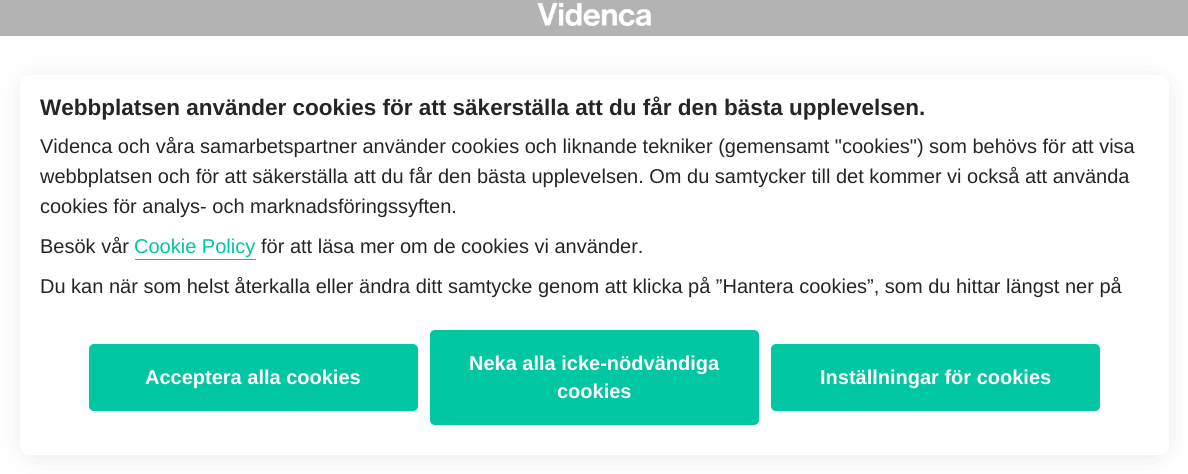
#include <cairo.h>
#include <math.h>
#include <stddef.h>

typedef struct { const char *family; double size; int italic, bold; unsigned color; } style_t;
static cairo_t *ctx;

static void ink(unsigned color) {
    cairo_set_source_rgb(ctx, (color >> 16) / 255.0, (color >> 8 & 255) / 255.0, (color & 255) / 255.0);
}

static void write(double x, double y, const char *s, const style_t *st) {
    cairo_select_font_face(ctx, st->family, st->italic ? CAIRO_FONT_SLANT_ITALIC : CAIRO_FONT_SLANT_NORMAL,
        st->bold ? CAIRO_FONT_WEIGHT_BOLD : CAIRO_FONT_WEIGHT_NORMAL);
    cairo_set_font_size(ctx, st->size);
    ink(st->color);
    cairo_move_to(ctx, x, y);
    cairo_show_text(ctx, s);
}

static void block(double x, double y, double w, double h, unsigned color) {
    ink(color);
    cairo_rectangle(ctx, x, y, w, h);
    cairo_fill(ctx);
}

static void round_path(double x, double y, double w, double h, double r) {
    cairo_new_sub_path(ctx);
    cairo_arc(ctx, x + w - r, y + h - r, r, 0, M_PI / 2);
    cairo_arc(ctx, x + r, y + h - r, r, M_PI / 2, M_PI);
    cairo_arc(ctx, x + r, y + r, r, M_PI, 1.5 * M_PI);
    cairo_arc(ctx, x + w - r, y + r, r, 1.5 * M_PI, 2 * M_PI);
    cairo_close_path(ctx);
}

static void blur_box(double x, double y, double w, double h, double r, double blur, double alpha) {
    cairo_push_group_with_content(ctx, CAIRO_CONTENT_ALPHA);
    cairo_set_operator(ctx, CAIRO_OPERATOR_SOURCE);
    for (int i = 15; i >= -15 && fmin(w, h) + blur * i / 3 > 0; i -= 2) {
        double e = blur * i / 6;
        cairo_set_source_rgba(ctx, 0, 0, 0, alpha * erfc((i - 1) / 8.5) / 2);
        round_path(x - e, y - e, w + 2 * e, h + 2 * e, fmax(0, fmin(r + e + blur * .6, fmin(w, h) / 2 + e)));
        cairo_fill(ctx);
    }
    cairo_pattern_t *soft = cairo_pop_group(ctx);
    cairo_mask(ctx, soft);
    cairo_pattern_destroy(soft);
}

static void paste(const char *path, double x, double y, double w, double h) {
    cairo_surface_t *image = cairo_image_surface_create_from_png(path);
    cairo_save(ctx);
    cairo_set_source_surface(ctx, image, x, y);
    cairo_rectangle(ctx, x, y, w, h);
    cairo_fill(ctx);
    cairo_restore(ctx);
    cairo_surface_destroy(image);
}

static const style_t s1 = {"Liberation Sans", 22.5, 0, 1, 0x252525};
static const style_t s2 = {"Liberation Sans", 20, 0, 0, 0x252525};
static const style_t s3 = {"Liberation Sans", 20, 0, 0, 0x00c6a2};
static const style_t s4 = {"Liberation Sans", 20, 0, 1, 0xffffff};

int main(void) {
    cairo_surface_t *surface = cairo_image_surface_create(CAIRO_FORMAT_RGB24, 1188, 474);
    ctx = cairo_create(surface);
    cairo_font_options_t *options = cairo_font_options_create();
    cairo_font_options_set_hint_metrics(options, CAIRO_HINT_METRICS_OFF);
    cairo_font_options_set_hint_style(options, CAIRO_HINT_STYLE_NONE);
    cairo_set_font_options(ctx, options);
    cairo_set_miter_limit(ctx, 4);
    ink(0xffffff);
    cairo_paint(ctx);
    block(0, 0, 1188, 36, 0xb3b3b3);
    paste("pic1.png", 537, 2, 115, 24);
    ink(0x000000);
    blur_box(33, 90, 1123, 355, 0, 17, 0.18);
    ink(0xffffff);
    round_path(20, 75, 1149, 380, 10);
    cairo_fill(ctx);
    write(40, 115, "Webbplatsen använder cookies för att säkerställa att du får den bästa upplevelsen.", &s1);
    write(40, 153, "Videnca och våra samarbetspartner använder cookies och liknande tekniker (gemensamt \"cookies\") som behövs för att visa", &s2);
    write(40, 183, "webbplatsen och för att säkerställa att du får den bästa upplevelsen. Om du samtycker till det kommer vi också att använda", &s2);
    write(40, 213, "cookies för analys- och marknadsföringssyften.", &s2);
    write(40, 253, "Besök vår", &s2);
    write(134, 253, "Cookie Policy", &s3);
    block(135, 259, 121, 1, 0x00c6a2);
    write(261, 253, "för att läsa mer om de cookies vi använder.", &s2);
    write(40, 293, "Du kan när som helst återkalla eller ändra ditt samtycke genom att klicka på ”Hantera cookies”, som du hittar längst ner på", &s2);
    ink(0x00c6a2);
    round_path(89, 344, 329, 67, 5);
    cairo_fill(ctx);
    write(145, 384, "Acceptera alla cookies", &s4);
    ink(0x00c6a2);
    round_path(430, 330, 329, 95, 5);
    cairo_fill(ctx);
    write(469, 370, "Neka alla icke-nödvändiga", &s4);
    write(557, 398, "cookies", &s4);
    ink(0x00c6a2);
    round_path(771, 344, 329, 67, 5);
    cairo_fill(ctx);
    write(820, 384, "Inställningar för cookies", &s4);
    cairo_surface_write_to_png(surface, "screenshot.png");
    cairo_font_options_destroy(options);
    cairo_destroy(ctx);
    cairo_surface_destroy(surface);
    return 0;
}
